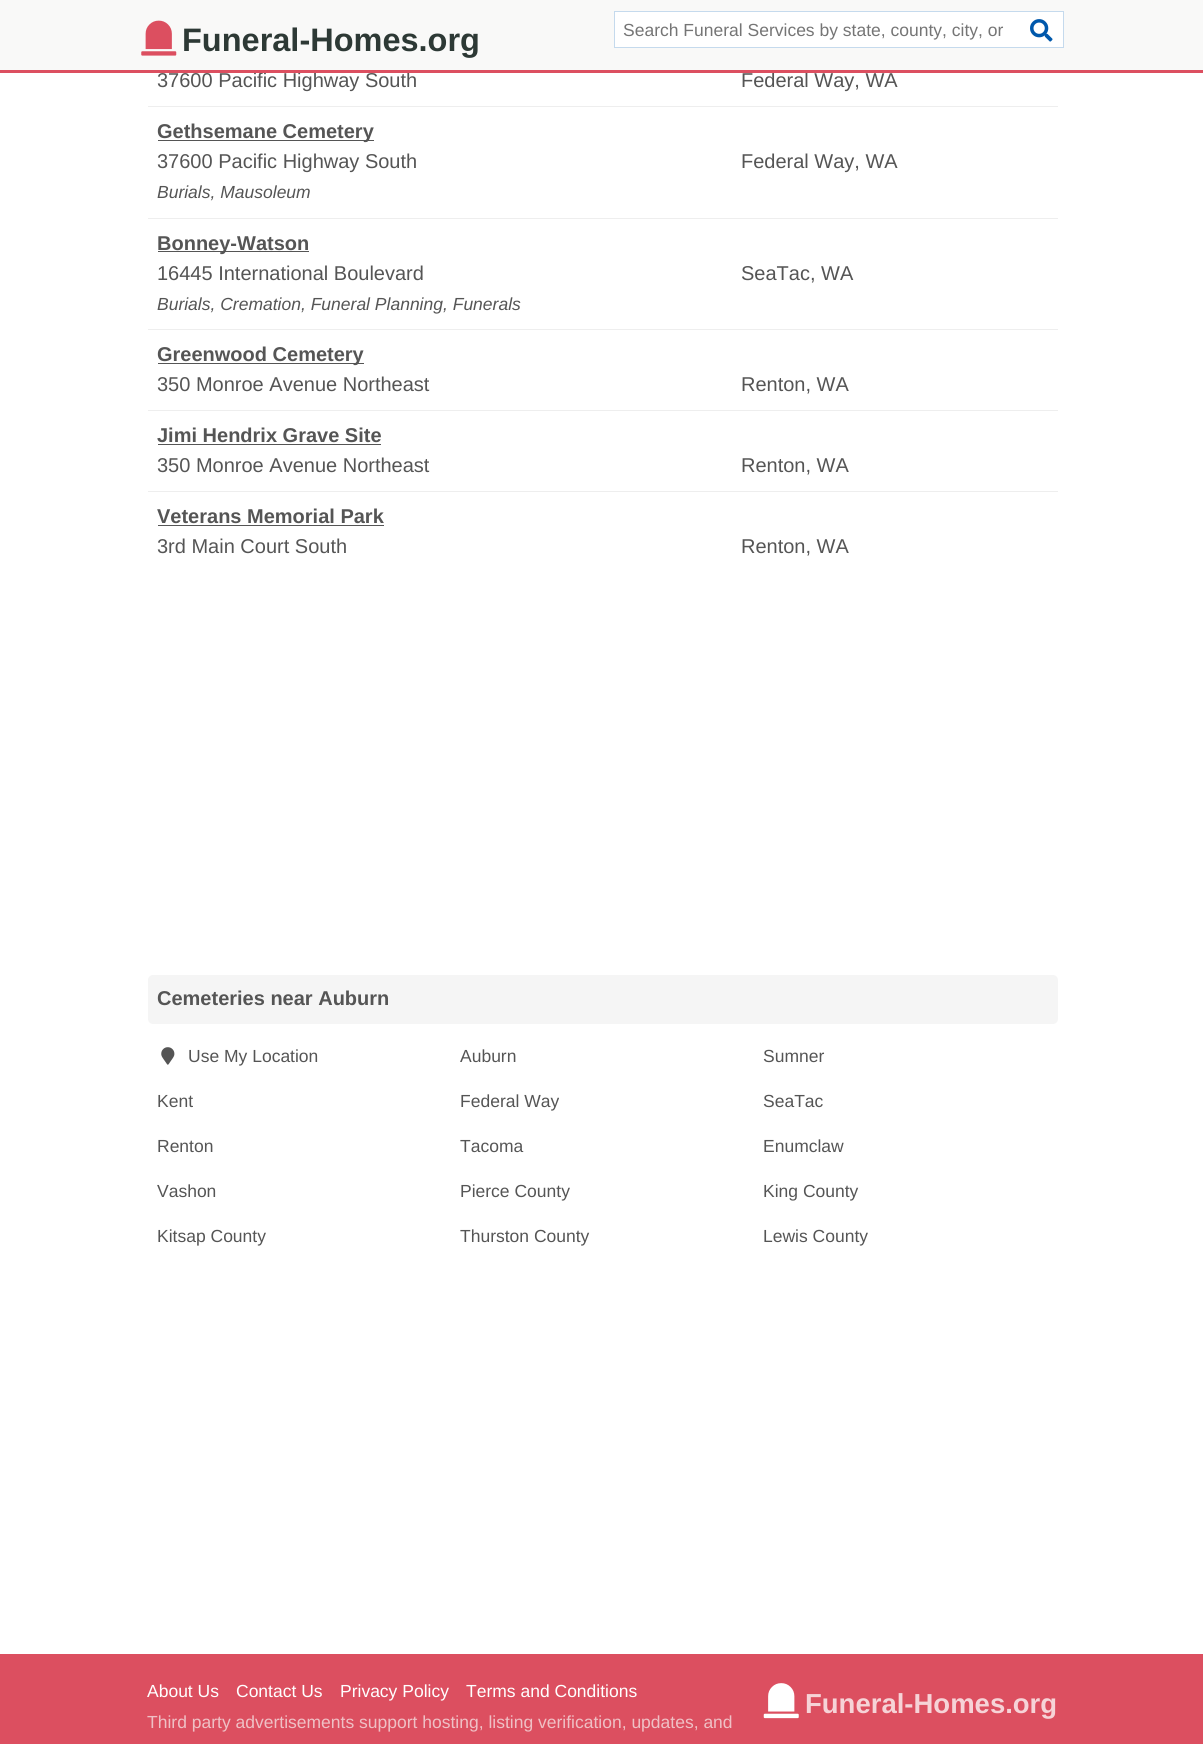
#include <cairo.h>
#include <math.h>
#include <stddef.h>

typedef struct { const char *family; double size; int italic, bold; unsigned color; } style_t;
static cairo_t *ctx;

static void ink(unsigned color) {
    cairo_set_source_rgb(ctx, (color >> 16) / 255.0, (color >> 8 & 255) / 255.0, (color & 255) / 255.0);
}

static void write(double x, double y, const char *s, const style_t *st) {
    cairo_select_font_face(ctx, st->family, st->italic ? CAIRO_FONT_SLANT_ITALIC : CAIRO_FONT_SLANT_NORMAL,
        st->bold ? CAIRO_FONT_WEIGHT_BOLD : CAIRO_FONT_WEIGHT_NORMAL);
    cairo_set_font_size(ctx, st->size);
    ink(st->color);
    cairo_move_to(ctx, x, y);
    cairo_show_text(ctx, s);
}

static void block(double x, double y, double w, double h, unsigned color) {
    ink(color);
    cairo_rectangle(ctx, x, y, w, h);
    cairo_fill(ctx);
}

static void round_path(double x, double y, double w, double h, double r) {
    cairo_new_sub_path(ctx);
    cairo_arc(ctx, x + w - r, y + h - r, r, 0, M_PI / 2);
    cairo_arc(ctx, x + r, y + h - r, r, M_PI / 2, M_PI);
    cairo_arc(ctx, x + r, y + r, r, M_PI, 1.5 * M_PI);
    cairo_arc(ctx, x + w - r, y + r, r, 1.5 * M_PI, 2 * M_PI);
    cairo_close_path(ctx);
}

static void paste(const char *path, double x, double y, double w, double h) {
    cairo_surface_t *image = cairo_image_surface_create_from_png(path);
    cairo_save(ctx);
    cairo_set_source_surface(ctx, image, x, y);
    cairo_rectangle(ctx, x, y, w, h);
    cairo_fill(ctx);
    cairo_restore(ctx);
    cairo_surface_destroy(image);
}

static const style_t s1 = {"Liberation Sans", 20, 0, 0, 0x555555};
static const style_t s2 = {"Liberation Sans", 32.5, 0, 1, 0x2d3935};
static const style_t s3 = {"Liberation Sans", 17.5, 0, 0, 0x757575};
static const style_t s4 = {"Liberation Sans", 20, 0, 1, 0x555555};
static const style_t s5 = {"Liberation Sans", 17.5, 1, 0, 0x555555};
static const style_t s6 = {"Liberation Sans", 17.5, 0, 0, 0x555555};
static const style_t s7 = {"Liberation Sans", 17.5, 0, 0, 0xffffff};
static const style_t s8 = {"Liberation Sans", 17.5, 0, 0, 0xefc0c5};
static const style_t s9 = {"Liberation Sans", 27.5, 0, 1, 0xf6d3d7};

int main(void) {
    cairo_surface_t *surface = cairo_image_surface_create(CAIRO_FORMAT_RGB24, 1203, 1744);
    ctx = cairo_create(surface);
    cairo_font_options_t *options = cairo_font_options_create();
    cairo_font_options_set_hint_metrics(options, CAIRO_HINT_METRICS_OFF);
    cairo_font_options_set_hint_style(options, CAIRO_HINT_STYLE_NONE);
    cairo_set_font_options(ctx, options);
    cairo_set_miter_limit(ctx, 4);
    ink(0xffffff);
    cairo_paint(ctx);
    block(0, 0, 1203, 70, 0xf9f9f8);
    write(157, 87, "37600 Pacific Highway South", &s1);
    write(741, 87, "Federal Way, WA", &s1);
    block(0, 70, 1203, 3, 0xdc4f60);
    paste("pic1.png", 141, 20, 36, 36);
    write(182, 51, "Funeral-Homes.org", &s2);
    ink(0xffffff);
    cairo_rectangle(ctx, 614.5, 11.5, 449, 36);
    cairo_fill_preserve(ctx);
    ink(0xc5daed);
    cairo_set_line_width(ctx, 1);
    cairo_stroke(ctx);
    write(623, 36, "Search Funeral Services by state, county, city, or", &s3);
    paste("pic2.png", 1030, 19, 23, 23);
    block(148, 106, 910, 1, 0xeeeeee);
    block(158, 140, 216, 1, 0x555555);
    write(157, 138, "Gethsemane Cemetery", &s4);
    write(157, 168, "37600 Pacific Highway South", &s1);
    write(741, 168, "Federal Way, WA", &s1);
    write(157, 198, "Burials, Mausoleum", &s5);
    block(148, 218, 910, 1, 0xeeeeee);
    block(158, 251, 151, 1, 0x555555);
    write(157, 250, "Bonney-Watson", &s4);
    write(157, 280, "16445 International Boulevard", &s1);
    write(741, 280, "SeaTac, WA", &s1);
    write(157, 310, "Burials, Cremation, Funeral Planning, Funerals", &s5);
    block(148, 329, 910, 1, 0xeeeeee);
    block(158, 363, 206, 1, 0x555555);
    write(157, 361, "Greenwood Cemetery", &s4);
    write(157, 391, "350 Monroe Avenue Northeast", &s1);
    write(741, 391, "Renton, WA", &s1);
    block(148, 410, 910, 1, 0xeeeeee);
    write(157, 442, "Jimi Hendrix Grave Site", &s4);
    block(158, 444, 223, 1, 0x555555);
    write(157, 472, "350 Monroe Avenue Northeast", &s1);
    write(741, 472, "Renton, WA", &s1);
    block(148, 491, 910, 1, 0xeeeeee);
    write(157, 523, "Veterans Memorial Park", &s4);
    block(158, 525, 226, 1, 0x555555);
    write(157, 553, "3rd Main Court South", &s1);
    write(741, 553, "Renton, WA", &s1);
    ink(0xf5f5f5);
    round_path(148, 975, 910, 49, 5);
    cairo_fill(ctx);
    write(157, 1005, "Cemeteries near Auburn", &s4);
    paste("pic3.png", 161, 1047, 14, 18);
    write(188, 1062, "Use My Location", &s6);
    write(460, 1062, "Auburn", &s6);
    write(763, 1062, "Sumner", &s6);
    write(157, 1107, "Kent", &s6);
    write(460, 1107, "Federal Way", &s6);
    write(763, 1107, "SeaTac", &s6);
    write(157, 1152, "Renton", &s6);
    write(460, 1152, "Tacoma", &s6);
    write(763, 1152, "Enumclaw", &s6);
    write(157, 1197, "Vashon", &s6);
    write(460, 1197, "Pierce County", &s6);
    write(763, 1197, "King County", &s6);
    write(157, 1242, "Kitsap County", &s6);
    write(460, 1242, "Thurston County", &s6);
    write(763, 1242, "Lewis County", &s6);
    block(0, 1654, 1203, 90, 0xdc4f60);
    write(147, 1697, "About Us", &s7);
    write(236, 1697, "Contact Us", &s7);
    write(340, 1697, "Privacy Policy", &s7);
    write(466, 1697, "Terms and Conditions", &s7);
    write(147, 1728, "Third party advertisements support hosting, listing verification, updates, and", &s8);
    paste("pic4.png", 763, 1683, 36, 36);
    write(805, 1713, "Funeral-Homes.org", &s9);
    cairo_surface_write_to_png(surface, "screenshot.png");
    cairo_font_options_destroy(options);
    cairo_destroy(ctx);
    cairo_surface_destroy(surface);
    return 0;
}
